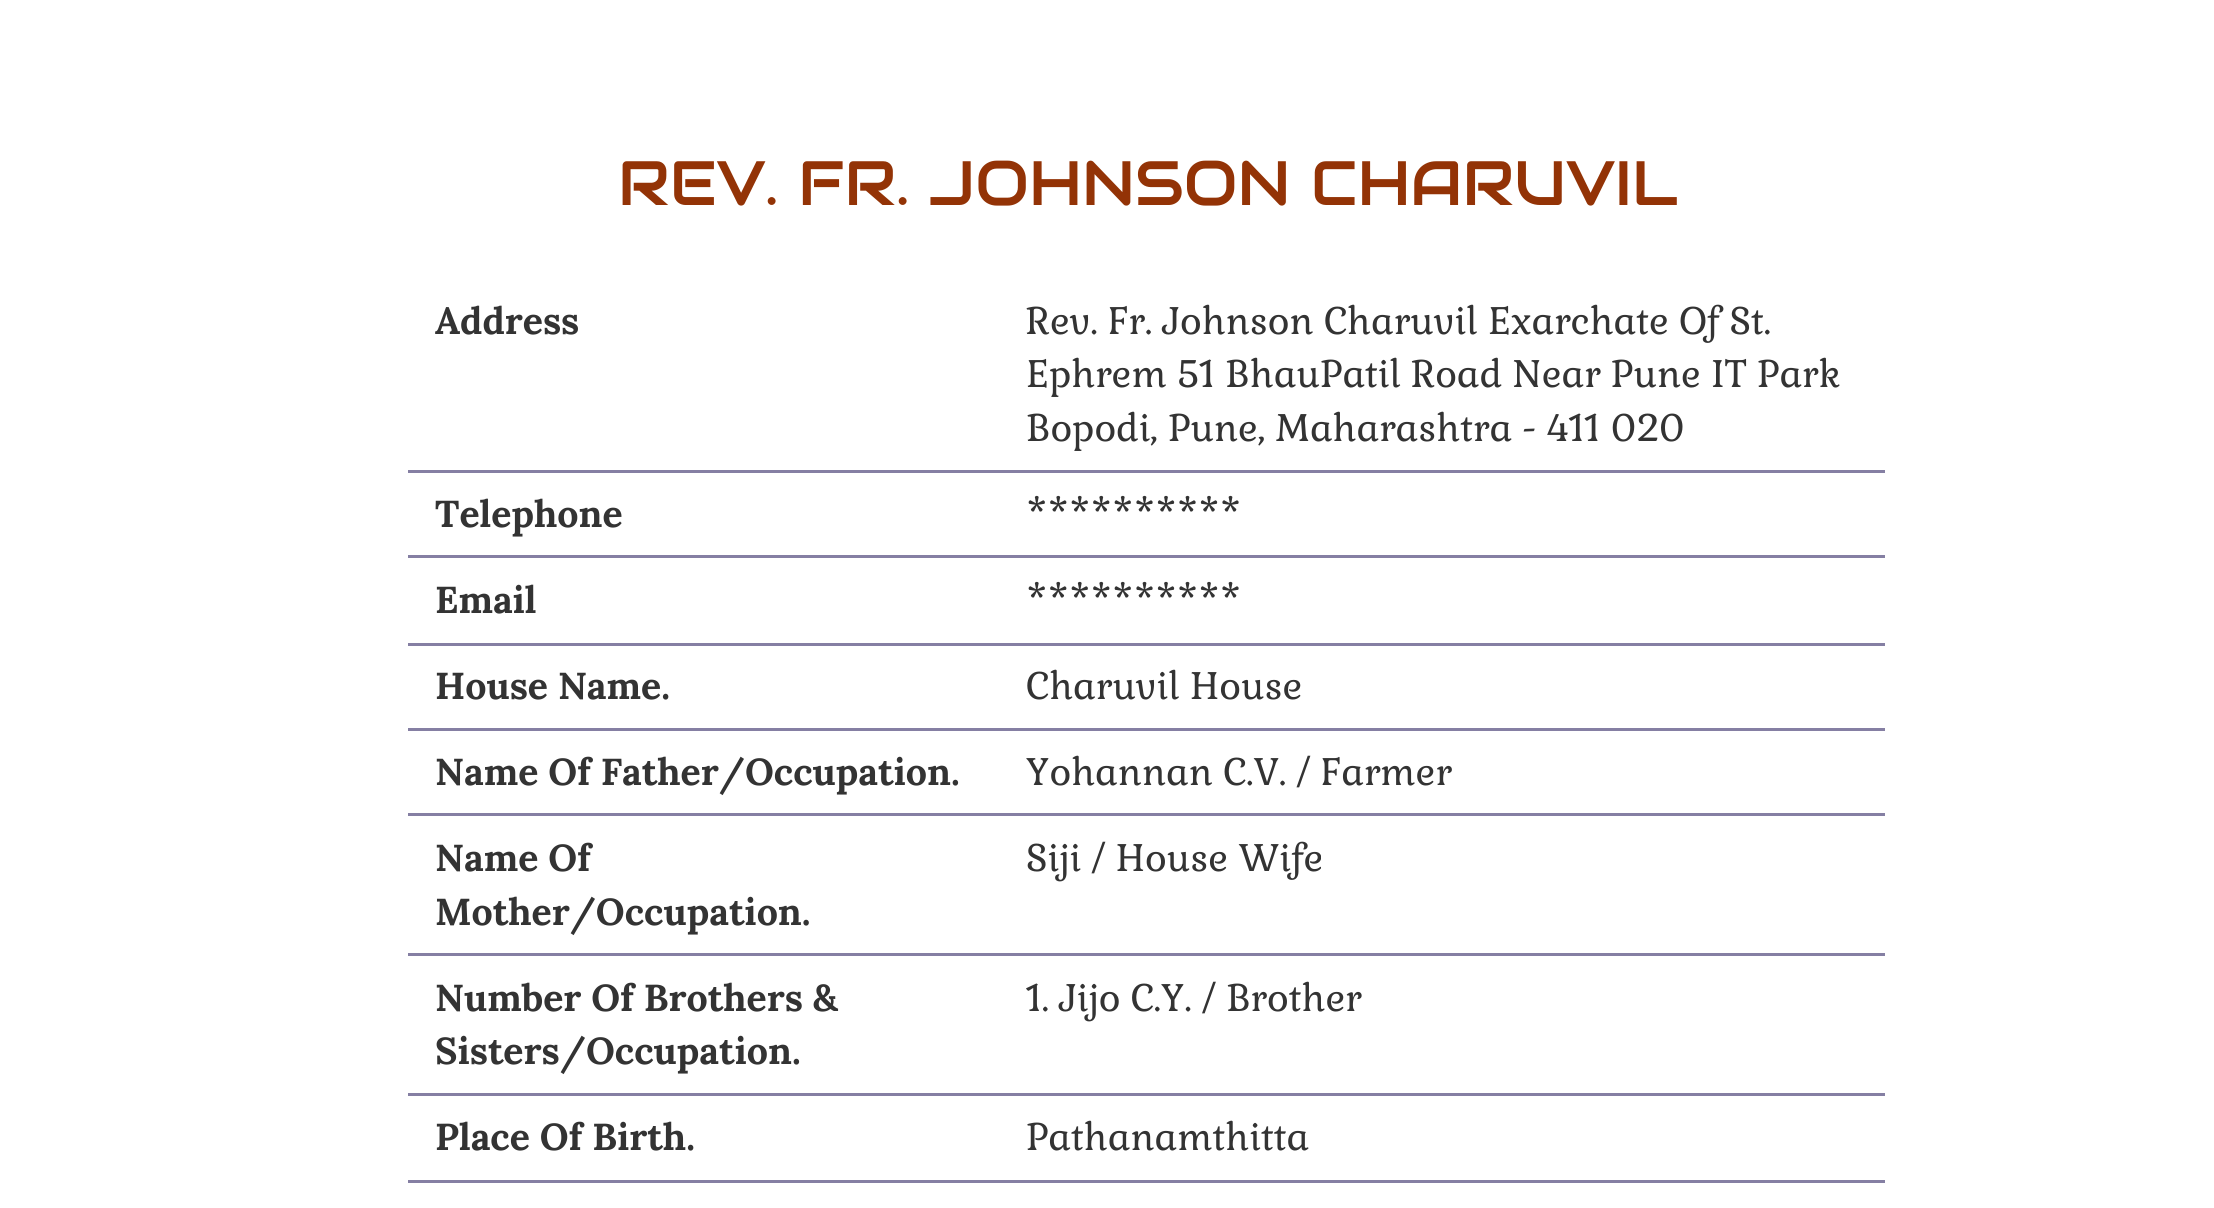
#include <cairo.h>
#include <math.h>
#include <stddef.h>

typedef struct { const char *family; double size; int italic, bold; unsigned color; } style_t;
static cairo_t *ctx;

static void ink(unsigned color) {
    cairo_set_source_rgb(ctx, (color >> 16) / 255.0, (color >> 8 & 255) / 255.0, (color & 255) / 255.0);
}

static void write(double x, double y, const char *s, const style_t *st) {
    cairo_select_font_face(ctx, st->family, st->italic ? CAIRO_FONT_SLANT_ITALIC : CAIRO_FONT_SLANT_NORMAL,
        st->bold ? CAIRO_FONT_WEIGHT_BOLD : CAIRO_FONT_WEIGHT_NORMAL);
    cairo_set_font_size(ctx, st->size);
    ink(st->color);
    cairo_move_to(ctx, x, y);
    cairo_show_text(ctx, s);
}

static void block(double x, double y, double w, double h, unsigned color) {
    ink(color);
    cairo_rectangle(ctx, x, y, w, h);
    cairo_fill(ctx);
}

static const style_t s1 = {"Audiowide", 62.5, 0, 0, 0x933306};
static const style_t s2 = {"Lora", 37.5, 0, 1, 0x333333};
static const style_t s3 = {"Gabriela", 37.5, 0, 0, 0x333333};

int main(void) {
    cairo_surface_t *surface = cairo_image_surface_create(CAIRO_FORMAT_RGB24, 2214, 1208);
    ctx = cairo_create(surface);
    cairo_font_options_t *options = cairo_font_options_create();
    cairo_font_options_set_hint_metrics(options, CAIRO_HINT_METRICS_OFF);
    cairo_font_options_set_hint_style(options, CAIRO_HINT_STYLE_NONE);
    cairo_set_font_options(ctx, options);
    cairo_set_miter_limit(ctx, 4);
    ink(0xffffff);
    cairo_paint(ctx);
    write(618, 205, "REV. FR. JOHNSON CHARUVIL", &s1);
    write(435, 334, "Address", &s2);
    block(408, 470, 1477, 3, 0x857fa3);
    write(1026, 334, "Rev. Fr. Johnson Charuvil Exarchate Of St.", &s3);
    write(1026, 387, "Ephrem 51 BhauPatil Road Near Pune IT Park", &s3);
    write(1026, 441, "Bopodi, Pune, Maharashtra - 411 020", &s3);
    write(435, 527, "Telephone", &s2);
    block(408, 555, 1477, 3, 0x857fa3);
    write(1026, 527, "**********", &s3);
    write(435, 613, "Email", &s2);
    block(408, 643, 1477, 3, 0x857fa3);
    write(1026, 613, "**********", &s3);
    write(435, 699, "House Name.", &s2);
    block(408, 728, 1477, 3, 0x857fa3);
    write(1026, 699, "Charuvil House", &s3);
    write(435, 785, "Name Of Father/Occupation.", &s2);
    block(408, 813, 1477, 3, 0x857fa3);
    write(1026, 785, "Yohannan C.V. / Farmer", &s3);
    write(435, 871, "Name Of", &s2);
    write(435, 925, "Mother/Occupation.", &s2);
    block(408, 953, 1477, 3, 0x857fa3);
    write(1026, 871, "Siji / House Wife", &s3);
    write(435, 1011, "Number Of Brothers &", &s2);
    write(435, 1064, "Sisters/Occupation.", &s2);
    block(408, 1093, 1477, 3, 0x857fa3);
    write(1026, 1011, "1. Jijo C.Y. / Brother", &s3);
    write(435, 1150, "Place Of Birth.", &s2);
    block(408, 1180, 1477, 3, 0x857fa3);
    write(1026, 1150, "Pathanamthitta", &s3);
    cairo_surface_write_to_png(surface, "screenshot.png");
    cairo_font_options_destroy(options);
    cairo_destroy(ctx);
    cairo_surface_destroy(surface);
    return 0;
}
